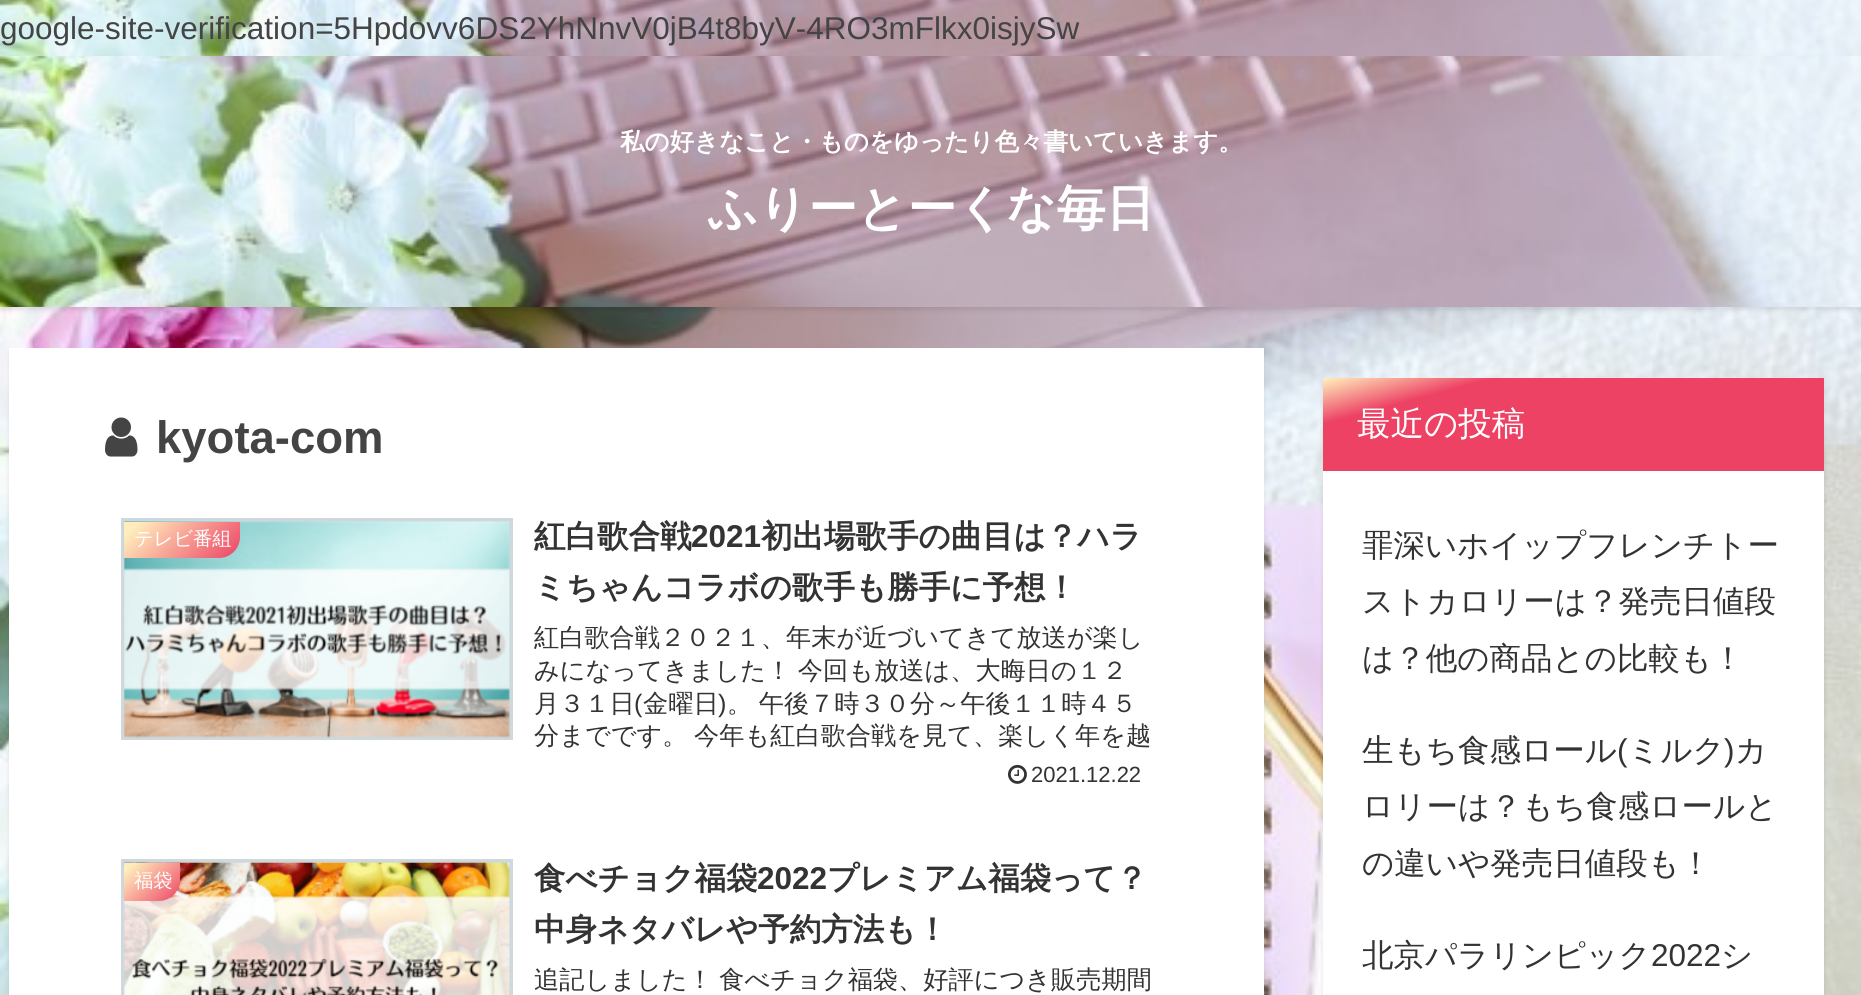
#include <cairo.h>
#include <math.h>
#include <stddef.h>

typedef struct { const char *family; double size; int italic, bold; unsigned color; } style_t;
static cairo_t *ctx;

static void ink(unsigned color) {
    cairo_set_source_rgb(ctx, (color >> 16) / 255.0, (color >> 8 & 255) / 255.0, (color & 255) / 255.0);
}

static void write(double x, double y, const char *s, const style_t *st) {
    cairo_select_font_face(ctx, st->family, st->italic ? CAIRO_FONT_SLANT_ITALIC : CAIRO_FONT_SLANT_NORMAL,
        st->bold ? CAIRO_FONT_WEIGHT_BOLD : CAIRO_FONT_WEIGHT_NORMAL);
    cairo_set_font_size(ctx, st->size);
    ink(st->color);
    cairo_move_to(ctx, x, y);
    cairo_show_text(ctx, s);
}

static void write_spaced(double x, double y, const char *s, double letter, double word) {
    cairo_move_to(ctx, x, y);
    while (*s) {
        char ch[5] = {0};
        int n = 0;
        do ch[n++] = *s++; while ((*s & 0xC0) == 0x80);
        cairo_show_text(ctx, ch);
        cairo_rel_move_to(ctx, letter + word * (*ch == ' '), 0);
    }
}

static void block(double x, double y, double w, double h, unsigned color) {
    ink(color);
    cairo_rectangle(ctx, x, y, w, h);
    cairo_fill(ctx);
}

static void round_path(double x, double y, double w, double h, double r) {
    cairo_new_sub_path(ctx);
    cairo_arc(ctx, x + w - r, y + h - r, r, 0, M_PI / 2);
    cairo_arc(ctx, x + r, y + h - r, r, M_PI / 2, M_PI);
    cairo_arc(ctx, x + r, y + r, r, M_PI, 1.5 * M_PI);
    cairo_arc(ctx, x + w - r, y + r, r, 1.5 * M_PI, 2 * M_PI);
    cairo_close_path(ctx);
}

static void blur_box(double x, double y, double w, double h, double r, double blur, double alpha) {
    cairo_push_group_with_content(ctx, CAIRO_CONTENT_ALPHA);
    cairo_set_operator(ctx, CAIRO_OPERATOR_SOURCE);
    for (int i = 15; i >= -15 && fmin(w, h) + blur * i / 3 > 0; i -= 2) {
        double e = blur * i / 6;
        cairo_set_source_rgba(ctx, 0, 0, 0, alpha * erfc((i - 1) / 8.5) / 2);
        round_path(x - e, y - e, w + 2 * e, h + 2 * e, fmax(0, fmin(r + e + blur * .6, fmin(w, h) / 2 + e)));
        cairo_fill(ctx);
    }
    cairo_pattern_t *soft = cairo_pop_group(ctx);
    cairo_mask(ctx, soft);
    cairo_pattern_destroy(soft);
}

static void paste(const char *path, double x, double y, double w, double h) {
    cairo_surface_t *image = cairo_image_surface_create_from_png(path);
    cairo_save(ctx);
    cairo_set_source_surface(ctx, image, x, y);
    cairo_rectangle(ctx, x, y, w, h);
    cairo_fill(ctx);
    cairo_restore(ctx);
    cairo_surface_destroy(image);
}

static const style_t s1 = {"Liberation Sans", 31.5, 0, 0, 0x444444};
static const style_t s2 = {"WenQuanYi Zen Hei", 24.5, 0, 1, 0xffffff};
static const style_t s3 = {"WenQuanYi Zen Hei", 49, 0, 1, 0xffffff};
static const style_t s4 = {"Liberation Sans", 45.5, 0, 1, 0x444444};
static const style_t s5 = {"WenQuanYi Zen Hei Medium", 19.25, 0, 0, 0xffffff};
static const style_t s6 = {"WenQuanYi Zen Hei", 31.5, 0, 1, 0x333333};
static const style_t s7 = {"Liberation Sans", 31.5, 0, 1, 0x333333};
static const style_t s8 = {"WenQuanYi Zen Hei Medium", 25.2, 0, 0, 0x333333};
static const style_t s9 = {"Liberation Sans", 25.2, 0, 0, 0x333333};
static const style_t s10 = {"Liberation Sans", 22, 0, 0, 0x333333};
static const style_t s11 = {"WenQuanYi Zen Hei Medium", 33.5, 0, 0, 0xffffff};
static const style_t s12 = {"WenQuanYi Zen Hei Medium", 31.5, 0, 0, 0x333333};
static const style_t s13 = {"Liberation Sans", 31.5, 0, 0, 0x333333};

int main(void) {
    cairo_surface_t *surface = cairo_image_surface_create(CAIRO_FORMAT_RGB24, 1861, 995);
    ctx = cairo_create(surface);
    cairo_font_options_t *options = cairo_font_options_create();
    cairo_font_options_set_hint_metrics(options, CAIRO_HINT_METRICS_OFF);
    cairo_font_options_set_hint_style(options, CAIRO_HINT_STYLE_NONE);
    cairo_set_font_options(ctx, options);
    cairo_set_miter_limit(ctx, 4);
    cairo_pattern_t *gradient;
    ink(0xffffff);
    cairo_paint(ctx);
    paste("pic1.png", 0, 0, 1861, 995);
    write(0, 39, "google-site-verification=5Hpdovv6DS2YhNnvV0jB4t8byV-4RO3mFlkx0isjySw", &s1);
    ink(0x000000);
    blur_box(0, 60, 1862, 250, 0, 2.5, 0.1);
    paste("pic2.png", 0, 56, 1861, 251);
    write(620, 150, "私の好きなこと・ものをゆったり色々書いていきます。", &s2);
    write(708, 225, "ふりーとーくな毎日", &s3);
    ink(0x000000);
    blur_box(9, 352, 1255, 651, 0, 2.5, 0.1);
    block(9, 348, 1255, 647, 0xffffff);
    paste("pic3.png", 105, 417, 33, 40);
    write(156, 453, "kyota-com", &s4);
    cairo_rectangle(ctx, 123, 520, 388, 218);
    ink(0xcfd8dc);
    cairo_set_line_width(ctx, 4);
    cairo_stroke(ctx);
    paste("pic4.png", 123, 521, 387, 217);
    gradient = cairo_pattern_create_linear(144, 502, 220, 578);
    cairo_pattern_add_color_stop_rgba(gradient, 0.1, 1, 0.929, 0.737, 1);
    cairo_pattern_add_color_stop_rgba(gradient, 1, 0.929, 0.259, 0.392, 1);
    cairo_set_source(ctx, gradient);
    cairo_pattern_destroy(gradient);
    cairo_new_path(ctx);
    cairo_move_to(ctx, 124, 522);
    cairo_line_to(ctx, 240, 522);
    cairo_line_to(ctx, 240, 537);
    cairo_curve_to(ctx, 240, 548.5, 230.5, 558, 219, 558);
    cairo_line_to(ctx, 124, 558);
    cairo_close_path(ctx);
    cairo_fill(ctx);
    write(134, 545, "テレビ番組", &s5);
    write(534, 547, "紅白歌合戦", &s6);
    write(691, 547, "2021", &s7);
    write(761, 547, "初出場歌手の曲目は？ハラ", &s6);
    write(534, 598, "ミちゃんコラボの歌手も勝手に予想！", &s6);
    write(534, 646, "紅白歌合戦２０２１、年末が近づいてきて放送が楽し", &s8);
    write_spaced(534, 679, "みになってきました！ 今回も放送は、大晦日の１２", 0, -1);
    write(534, 712, "月３１日", &s8);
    write(634, 712, "(", &s9);
    write(643, 712, "金曜日", &s8);
    write(718, 712, ")", &s9);
    cairo_select_font_face(ctx, "WenQuanYi Zen Hei Medium", CAIRO_FONT_SLANT_NORMAL, CAIRO_FONT_WEIGHT_NORMAL);
    write_spaced(727, 712, "。 午後７時３０分～午後１１時４５", 0, -1);
    write_spaced(534, 744, "分までです。 今年も紅白歌合戦を見て、楽しく年を越", 0, -1);
    paste("pic5.png", 1008, 764, 19, 20);
    write(1031, 782, "2021.12.22", &s10);
    cairo_rectangle(ctx, 123, 861, 388, 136);
    ink(0xcfd8dc);
    cairo_stroke(ctx);
    paste("pic6.png", 123, 861, 387, 134);
    gradient = cairo_pattern_create_linear(129, 858, 176, 906);
    cairo_pattern_add_color_stop_rgba(gradient, 0.1, 1, 0.929, 0.737, 1);
    cairo_pattern_add_color_stop_rgba(gradient, 1, 0.929, 0.259, 0.392, 1);
    cairo_set_source(ctx, gradient);
    cairo_pattern_destroy(gradient);
    cairo_new_path(ctx);
    cairo_move_to(ctx, 124, 863);
    cairo_line_to(ctx, 180, 863);
    cairo_line_to(ctx, 180, 880);
    cairo_curve_to(ctx, 180, 891.5, 170.5, 901, 159, 901);
    cairo_line_to(ctx, 124, 901);
    cairo_close_path(ctx);
    cairo_fill(ctx);
    write(134, 887, "福袋", &s5);
    write(534, 889, "食べチョク福袋", &s6);
    write(757, 889, "2022", &s7);
    write(827, 889, "プレミアム福袋って？", &s6);
    write(534, 940, "中身ネタバレや予約方法も！", &s6);
    cairo_select_font_face(ctx, "WenQuanYi Zen Hei Medium", CAIRO_FONT_SLANT_NORMAL, CAIRO_FONT_WEIGHT_NORMAL);
    cairo_set_font_size(ctx, 25.2);
    write_spaced(534, 988, "追記しました！ 食べチョク福袋、好評につき販売期間", 0, -1);
    ink(0x000000);
    blur_box(1323, 382, 501, 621, 0, 2.5, 0.1);
    block(1323, 471, 501, 524, 0xffffff);
    gradient = cairo_pattern_create_linear(1545, 319, 1602, 530);
    cairo_pattern_add_color_stop_rgba(gradient, 0, 1, 0.929, 0.737, 1);
    cairo_pattern_add_color_stop_rgba(gradient, 0.2, 0.929, 0.259, 0.392, 1);
    cairo_set_source(ctx, gradient);
    cairo_pattern_destroy(gradient);
    cairo_rectangle(ctx, 1323, 378, 501, 93);
    cairo_fill(ctx);
    write(1357, 435, "最近の投稿", &s11);
    write(1362, 556, "罪深いホイップフレンチトー", &s12);
    write(1362, 612, "ストカロリーは？発売日値段", &s12);
    write(1362, 669, "は？他の商品との比較も！", &s12);
    write(1362, 761, "生もち食感ロール", &s12);
    write(1617, 761, "(", &s13);
    write(1628, 761, "ミルク", &s12);
    write(1724, 761, ")", &s13);
    write(1735, 761, "カ", &s12);
    write(1362, 817, "ロリーは？もち食感ロールと", &s12);
    write(1362, 874, "の違いや発売日値段も！", &s12);
    write(1362, 966, "北京パラリンピック", &s12);
    write(1651, 966, "2022", &s13);
    write(1721, 966, "シ", &s12);
    cairo_surface_write_to_png(surface, "screenshot.png");
    cairo_font_options_destroy(options);
    cairo_destroy(ctx);
    cairo_surface_destroy(surface);
    return 0;
}
